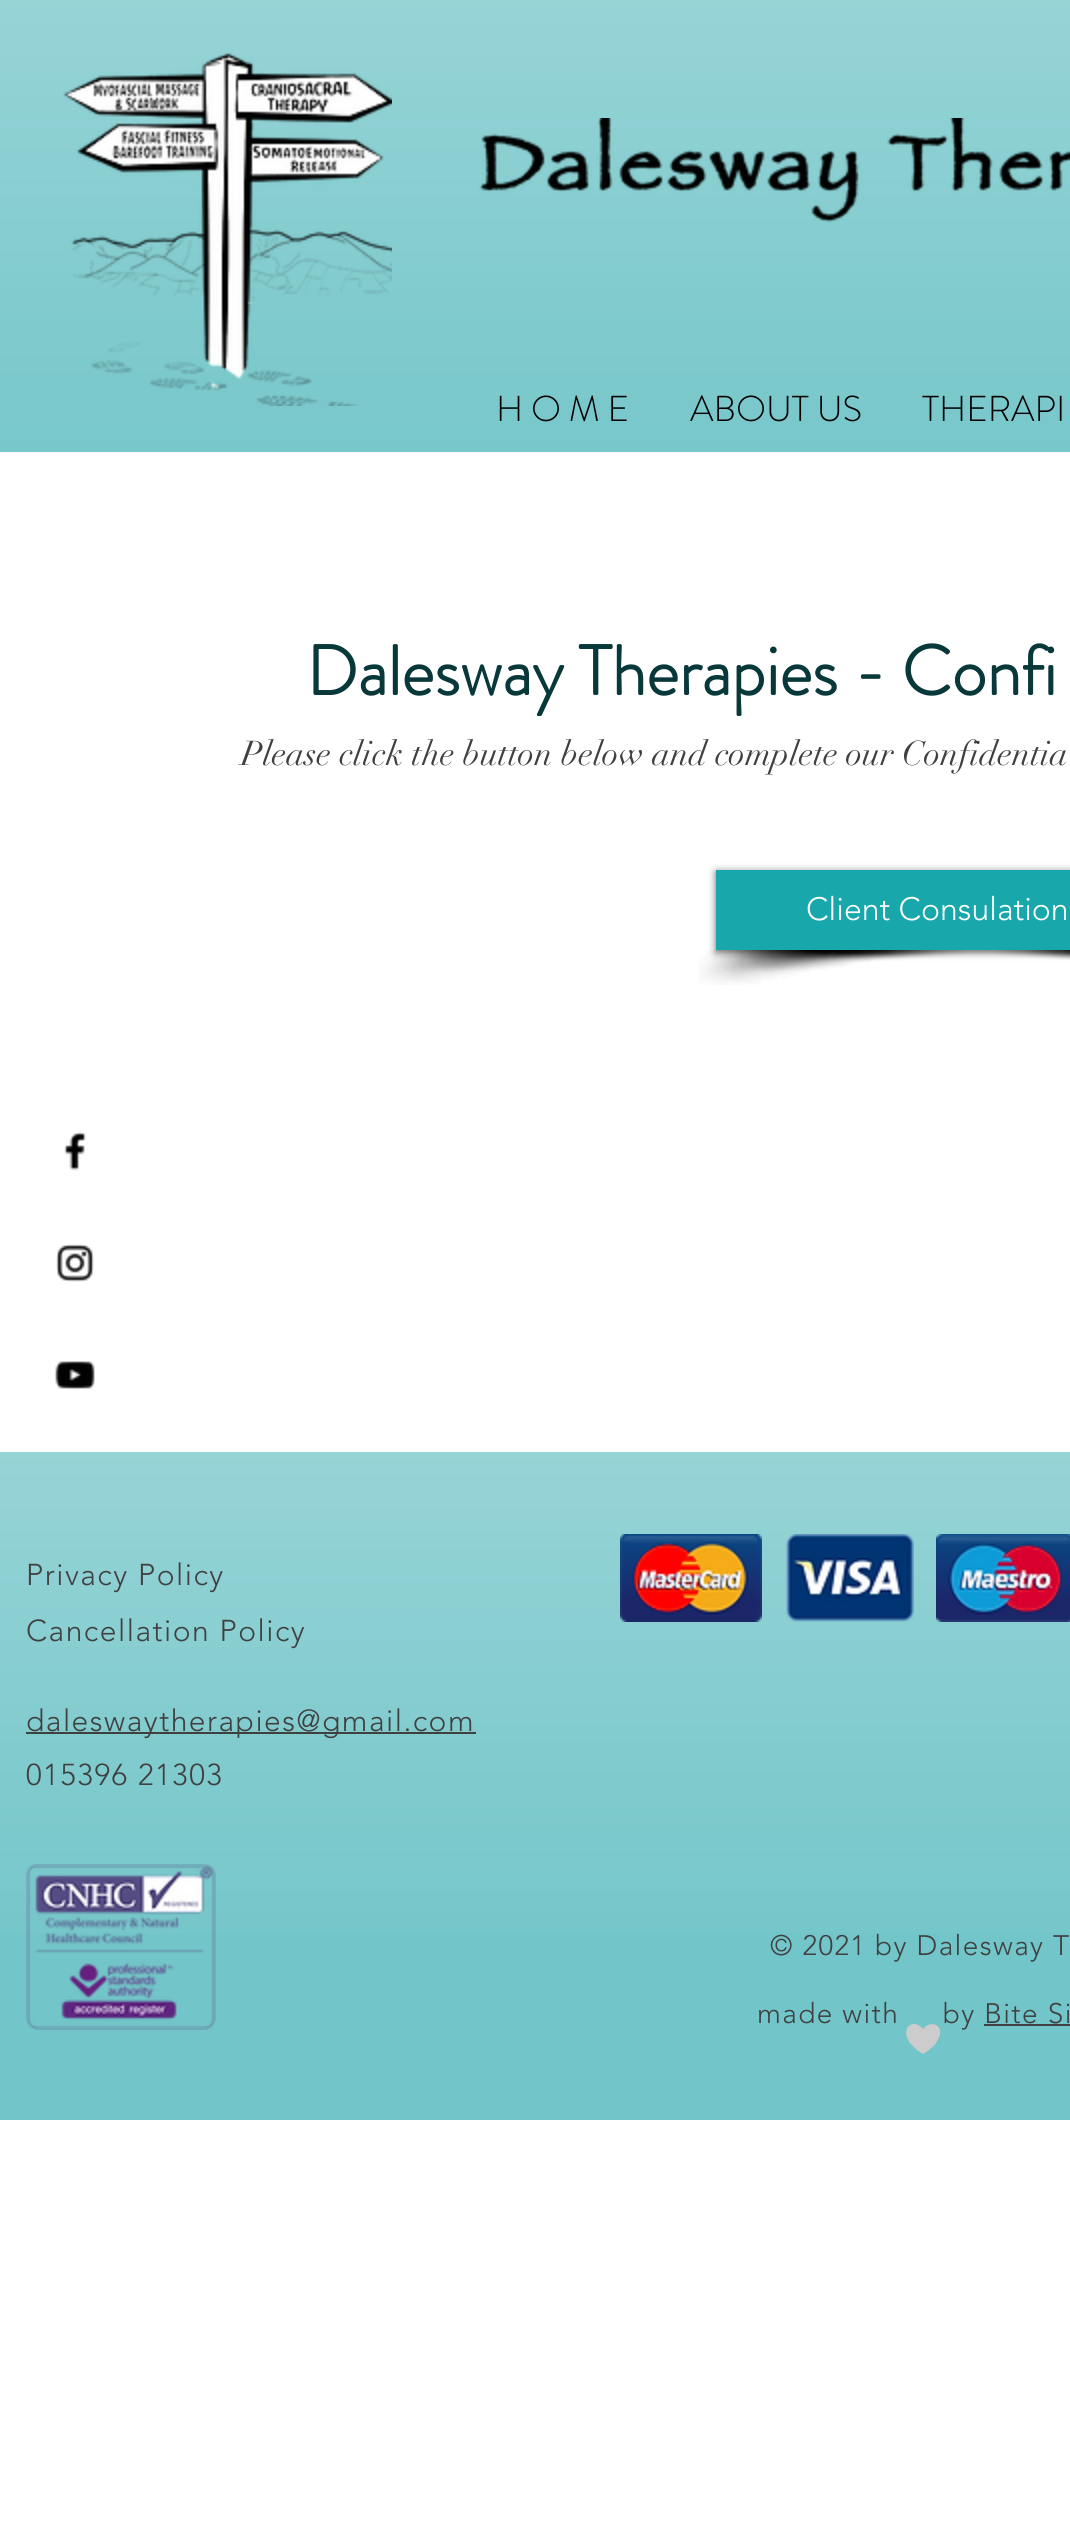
#include <cairo.h>
#include <math.h>
#include <stddef.h>

typedef struct { const char *family; double size; int italic, bold; unsigned color; } style_t;
static cairo_t *ctx;

static void ink(unsigned color) {
    cairo_set_source_rgb(ctx, (color >> 16) / 255.0, (color >> 8 & 255) / 255.0, (color & 255) / 255.0);
}

static void write(double x, double y, const char *s, const style_t *st) {
    cairo_select_font_face(ctx, st->family, st->italic ? CAIRO_FONT_SLANT_ITALIC : CAIRO_FONT_SLANT_NORMAL,
        st->bold ? CAIRO_FONT_WEIGHT_BOLD : CAIRO_FONT_WEIGHT_NORMAL);
    cairo_set_font_size(ctx, st->size);
    ink(st->color);
    cairo_move_to(ctx, x, y);
    cairo_show_text(ctx, s);
}

static void write_spaced(double x, double y, const char *s, double letter, double word) {
    cairo_move_to(ctx, x, y);
    while (*s) {
        char ch[5] = {0};
        int n = 0;
        do ch[n++] = *s++; while ((*s & 0xC0) == 0x80);
        cairo_show_text(ctx, ch);
        cairo_rel_move_to(ctx, letter + word * (*ch == ' '), 0);
    }
}

static void block(double x, double y, double w, double h, unsigned color) {
    ink(color);
    cairo_rectangle(ctx, x, y, w, h);
    cairo_fill(ctx);
}

static void round_path(double x, double y, double w, double h, double r) {
    cairo_new_sub_path(ctx);
    cairo_arc(ctx, x + w - r, y + h - r, r, 0, M_PI / 2);
    cairo_arc(ctx, x + r, y + h - r, r, M_PI / 2, M_PI);
    cairo_arc(ctx, x + r, y + r, r, M_PI, 1.5 * M_PI);
    cairo_arc(ctx, x + w - r, y + r, r, 1.5 * M_PI, 2 * M_PI);
    cairo_close_path(ctx);
}

static void blur_box(double x, double y, double w, double h, double r, double blur, double alpha) {
    cairo_push_group_with_content(ctx, CAIRO_CONTENT_ALPHA);
    cairo_set_operator(ctx, CAIRO_OPERATOR_SOURCE);
    for (int i = 15; i >= -15 && fmin(w, h) + blur * i / 3 > 0; i -= 2) {
        double e = blur * i / 6;
        cairo_set_source_rgba(ctx, 0, 0, 0, alpha * erfc((i - 1) / 8.5) / 2);
        round_path(x - e, y - e, w + 2 * e, h + 2 * e, fmax(0, fmin(r + e + blur * .6, fmin(w, h) / 2 + e)));
        cairo_fill(ctx);
    }
    cairo_pattern_t *soft = cairo_pop_group(ctx);
    cairo_mask(ctx, soft);
    cairo_pattern_destroy(soft);
}

static void paste(const char *path, double x, double y, double w, double h) {
    cairo_surface_t *image = cairo_image_surface_create_from_png(path);
    cairo_save(ctx);
    cairo_set_source_surface(ctx, image, x, y);
    cairo_rectangle(ctx, x, y, w, h);
    cairo_fill(ctx);
    cairo_restore(ctx);
    cairo_surface_destroy(image);
}

static const style_t s1 = {"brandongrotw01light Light", 36, 0, 0, 0x000000};
static const style_t s2 = {"brandongrotw01light", 70, 0, 1, 0x083839};
static const style_t s3 = {"didot", 34, 0, 0, 0x404041};
static const style_t s4 = {"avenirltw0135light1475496 Light", 32, 0, 0, 0xffffff};

int main(void) {
    cairo_surface_t *surface = cairo_image_surface_create(CAIRO_FORMAT_RGB24, 1070, 2524);
    ctx = cairo_create(surface);
    cairo_font_options_t *options = cairo_font_options_create();
    cairo_font_options_set_hint_metrics(options, CAIRO_HINT_METRICS_OFF);
    cairo_font_options_set_hint_style(options, CAIRO_HINT_STYLE_NONE);
    cairo_set_font_options(ctx, options);
    cairo_set_miter_limit(ctx, 4);
    ink(0xffffff);
    cairo_paint(ctx);
    block(0, 0, 1070, 452, 0x72c5c8);
    paste("pic1.png", 0, 0, 1070, 452);
    paste("pic2.png", 63, 53, 329, 353);
    paste("pic3.png", 479, 118, 591, 105);
    write(496, 421, "H O M E", &s1);
    write(690, 421, "ABOUT US", &s1);
    write(922, 421, "THERAPI", &s1);
    write(306, 695, "Dalesway Therapies - Confi", &s2);
    write(241, 765, "Please click the button below and complete our Confidentia", &s3);
    paste("pic4.png", 699, 950, 307, 35);
    paste("pic5.png", 952, 950, 118, 10);
    ink(0x000000);
    blur_box(716, 872, 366, 80, 0, 4, 0.6);
    block(716, 870, 354, 80, 0x18a8ac);
    write(806, 920, "Client Consulation", &s4);
    paste("pic6.png", 64, 1131, 23, 40);
    paste("pic7.png", 56, 1244, 38, 38);
    paste("pic8.png", 55, 1361, 40, 29);
    block(0, 1452, 1070, 668, 0x72c5c8);
    paste("pic9.png", 0, 1452, 1070, 481);
    cairo_set_font_size(ctx, 30);
    ink(0x404041);
    write_spaced(26, 1585, "Privacy Policy", 1.5, 0);
    paste("pic10.png", 620, 1534, 142, 88);
    paste("pic11.png", 786, 1534, 128, 88);
    paste("pic12.png", 936, 1534, 134, 88);
    write_spaced(26, 1641, "Cancellation Policy", 1.5, 0);
    block(26, 1732, 450, 2, 0x404041);
    write_spaced(26, 1731, "daleswaytherapies@gmail.com", 1.5, 0);
    write_spaced(26, 1785, "015396 21303", 1.5, 0);
    paste("pic13.png", 26, 1864, 190, 166);
    cairo_set_font_size(ctx, 28);
    write_spaced(770, 1955, "© 2021 by Dalesway T", 1.4, 0);
    write_spaced(757, 2023, "made with     by Bite Si", 1.4, 0);
    block(984, 2024, 86, 2, 0x404041);
    ink(0xcccccc);
    cairo_new_path(ctx);
    cairo_move_to(ctx, 937.5, 2026);
    cairo_curve_to(ctx, 932.5, 2022, 926.5, 2024.5, 923, 2029);
    cairo_curve_to(ctx, 911, 2014, 892, 2035.5, 923, 2054);
    cairo_curve_to(ctx, 927, 2051.5, 931, 2048.5, 934.5, 2045);
    cairo_curve_to(ctx, 938, 2041, 943.5, 2031, 937.5, 2026);
    cairo_close_path(ctx);
    cairo_fill(ctx);
    cairo_surface_write_to_png(surface, "screenshot.png");
    cairo_font_options_destroy(options);
    cairo_destroy(ctx);
    cairo_surface_destroy(surface);
    return 0;
}
